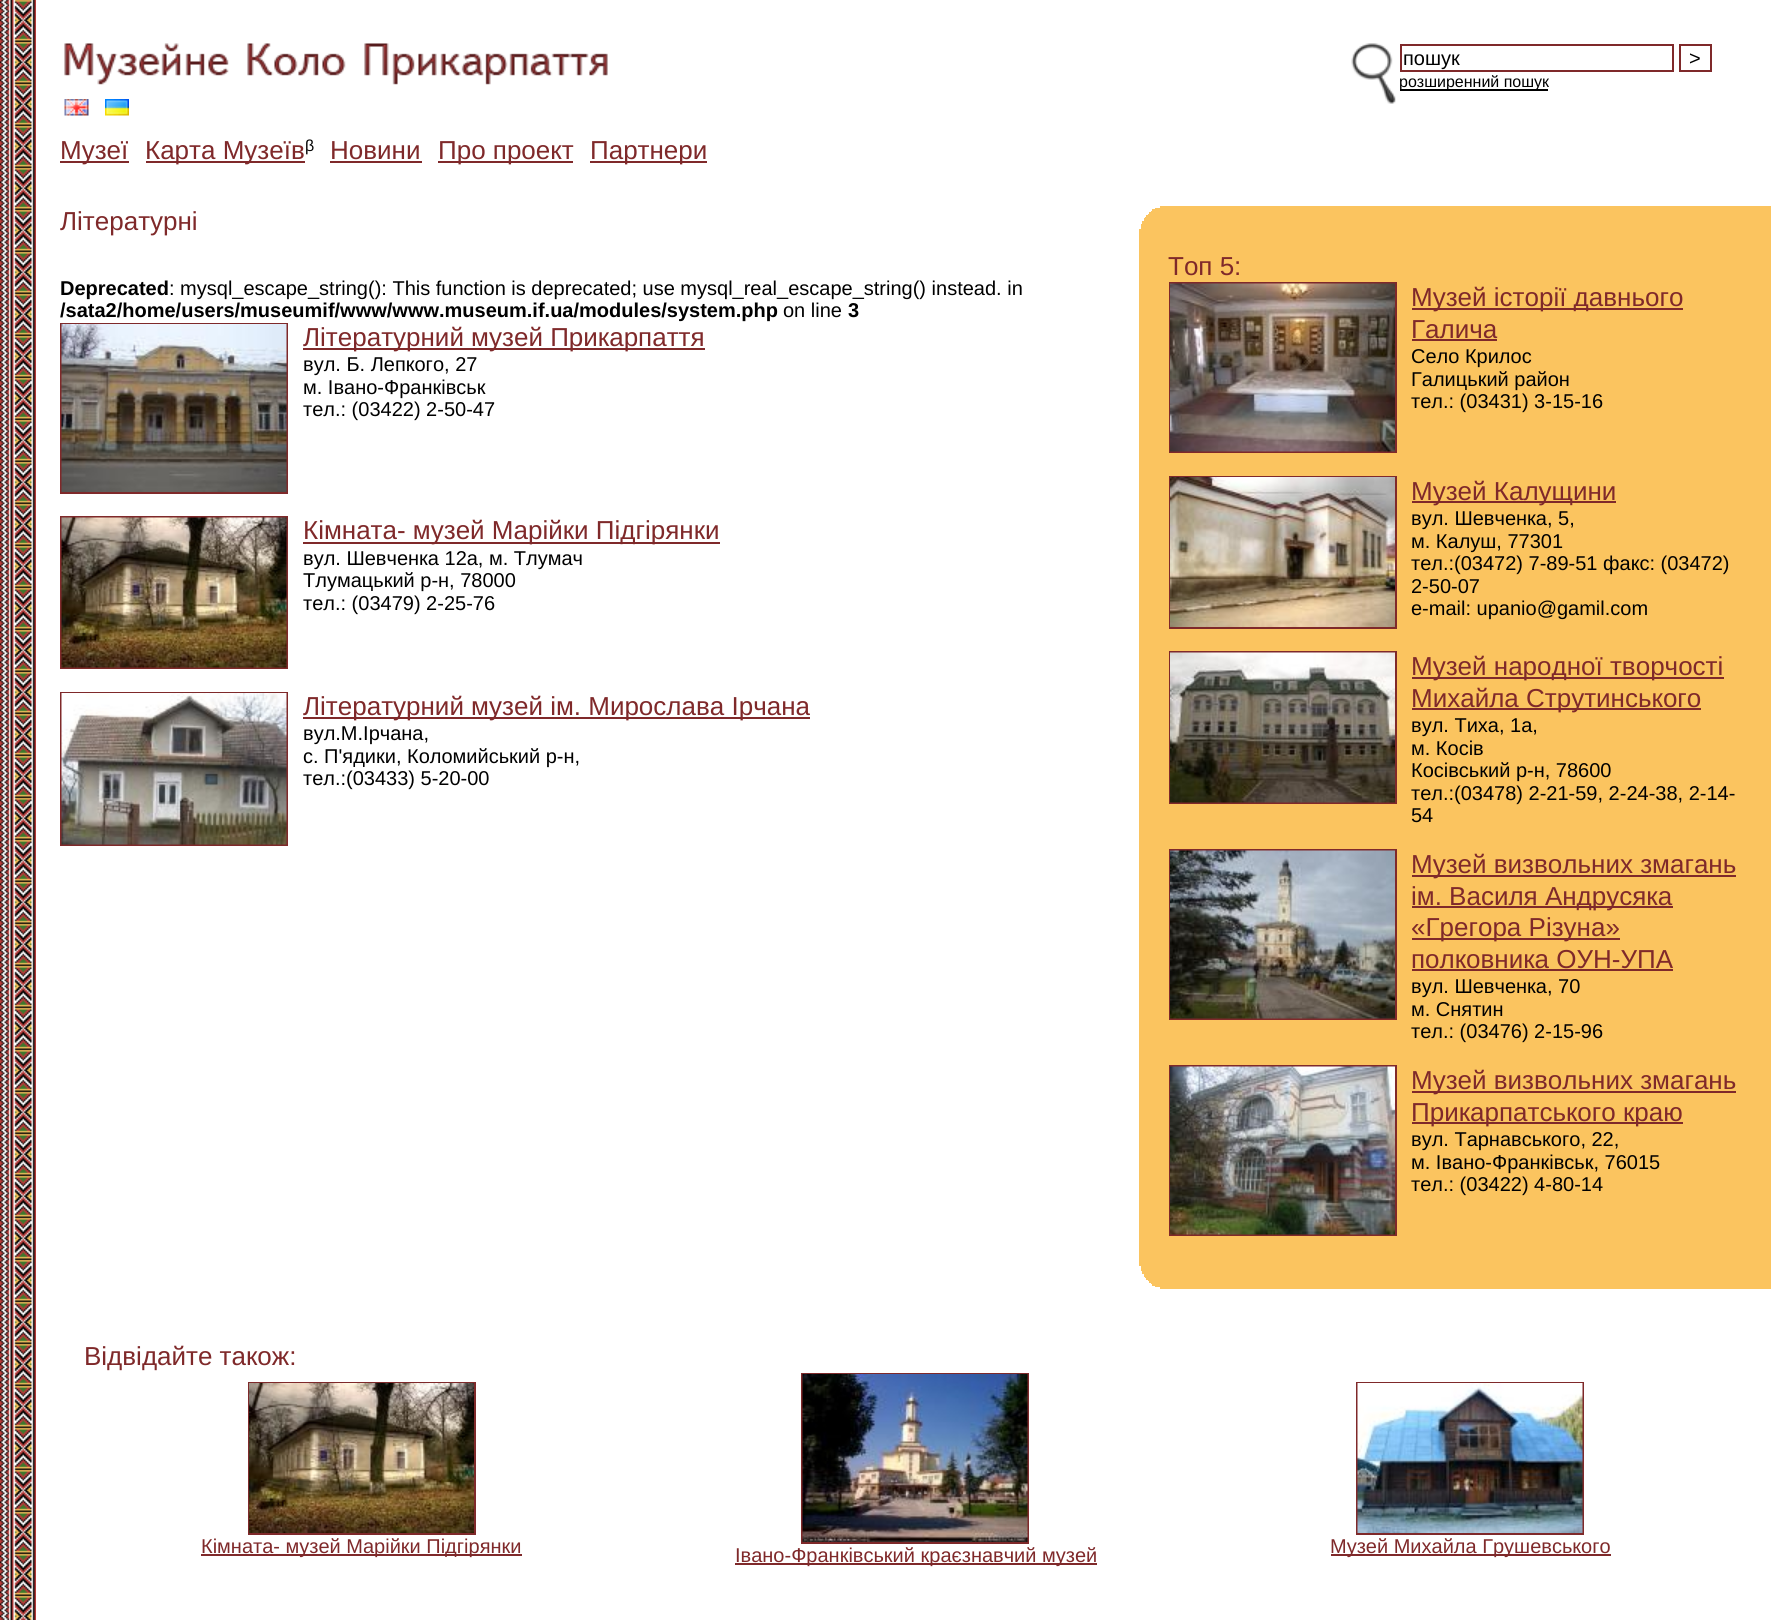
#include <cairo.h>
#include <math.h>
#include <stddef.h>

typedef struct { const char *family; double size; int italic, bold; unsigned color; } style_t;
static cairo_t *ctx;

static void ink(unsigned color) {
    cairo_set_source_rgb(ctx, (color >> 16) / 255.0, (color >> 8 & 255) / 255.0, (color & 255) / 255.0);
}

static void write(double x, double y, const char *s, const style_t *st) {
    cairo_select_font_face(ctx, st->family, st->italic ? CAIRO_FONT_SLANT_ITALIC : CAIRO_FONT_SLANT_NORMAL,
        st->bold ? CAIRO_FONT_WEIGHT_BOLD : CAIRO_FONT_WEIGHT_NORMAL);
    cairo_set_font_size(ctx, st->size);
    ink(st->color);
    cairo_move_to(ctx, x, y);
    cairo_show_text(ctx, s);
}

static void block(double x, double y, double w, double h, unsigned color) {
    ink(color);
    cairo_rectangle(ctx, x, y, w, h);
    cairo_fill(ctx);
}

static void paste(const char *path, double x, double y, double w, double h) {
    cairo_surface_t *image = cairo_image_surface_create_from_png(path);
    cairo_save(ctx);
    cairo_set_source_surface(ctx, image, x, y);
    cairo_rectangle(ctx, x, y, w, h);
    cairo_fill(ctx);
    cairo_restore(ctx);
    cairo_surface_destroy(image);
}

static const style_t s1 = {"Liberation Sans", 20, 0, 0, 0x000000};
static const style_t s2 = {"Liberation Sans", 16, 0, 0, 0x000000};
static const style_t s3 = {"Liberation Sans", 26, 0, 0, 0x7f292a};
static const style_t s4 = {"Liberation Sans", 20, 0, 1, 0x000000};
static const style_t s5 = {"Liberation Sans", 20, 0, 0, 0x7f292a};

int main(void) {
    cairo_surface_t *surface = cairo_image_surface_create(CAIRO_FORMAT_RGB24, 1771, 1620);
    ctx = cairo_create(surface);
    cairo_font_options_t *options = cairo_font_options_create();
    cairo_font_options_set_hint_metrics(options, CAIRO_HINT_METRICS_OFF);
    cairo_font_options_set_hint_style(options, CAIRO_HINT_STYLE_NONE);
    cairo_set_font_options(ctx, options);
    cairo_set_miter_limit(ctx, 4);
    ink(0xffffff);
    cairo_paint(ctx);
    paste("pic1.png", 1351, 43, 45, 61);
    cairo_rectangle(ctx, 1401, 45, 272, 26);
    ink(0x7f292a);
    cairo_stroke(ctx);
    write(1403, 65, "пошук", &s1);
    cairo_rectangle(ctx, 1680, 45, 31, 26);
    ink(0x7f292a);
    cairo_stroke(ctx);
    write(1689, 65, ">", &s1);
    block(1400, 89, 148, 2, 0x000000);
    write(1399, 87, "розширенний пошук", &s2);
    paste("pic2.png", 64, 99, 25, 17);
    paste("pic3.png", 105, 99, 24, 17);
    block(60, 161, 69, 2, 0x7f292a);
    write(60, 159, "Музеї", &s3);
    block(146, 161, 159, 2, 0x7f292a);
    write(145, 159, "Карта Музеїв", &s3);
    write(305, 151, "β", &s2);
    write(330, 159, "Новини", &s3);
    block(330, 161, 92, 2, 0x7f292a);
    block(438, 161, 135, 2, 0x7f292a);
    write(438, 159, "Про проект", &s3);
    block(590, 161, 117, 2, 0x7f292a);
    write(590, 159, "Партнери", &s3);
    paste("pic4.png", 0, 0, 36, 1620);
    paste("pic5.png", 64, 43, 544, 42);
    write(60, 230, "Літературні", &s3);
    write(60, 295, "Deprecated", &s4);
    write(169, 295, ": mysql_escape_string(): This function is deprecated; use mysql_real_escape_string() instead. in", &s1);
    write(60, 317, "/sata2/home/users/museumif/www/www.museum.if.ua/modules/system.php", &s4);
    write(783, 317, "on line", &s1);
    write(848, 317, "3", &s4);
    cairo_rectangle(ctx, 61, 324, 226, 169);
    ink(0x7f292a);
    cairo_stroke(ctx);
    paste("pic6.png", 61, 324, 226, 168);
    block(303, 348, 402, 2, 0x7f292a);
    write(303, 346, "Літературний музей Прикарпаття", &s3);
    write(303, 371, "вул. Б. Лепкого, 27", &s1);
    write(303, 394, "м. Івано-Франківськ", &s1);
    write(303, 416, "тел.: (03422) 2-50-47", &s1);
    cairo_rectangle(ctx, 61, 517, 226, 151);
    ink(0x7f292a);
    cairo_stroke(ctx);
    paste("pic7.png", 61, 517, 226, 151);
    block(303, 542, 417, 2, 0x7f292a);
    write(303, 539, "Кімната- музей Марійки Підгірянки", &s3);
    write(303, 565, "вул. Шевченка 12а, м. Тлумач", &s1);
    write(303, 587, "Тлумацький р-н, 78000", &s1);
    write(303, 610, "тел.: (03479) 2-25-76", &s1);
    cairo_rectangle(ctx, 61, 693, 226, 152);
    ink(0x7f292a);
    cairo_stroke(ctx);
    paste("pic8.png", 61, 693, 226, 152);
    block(303, 717, 507, 2, 0x7f292a);
    write(303, 715, "Літературний музей ім. Мирослава Ірчана", &s3);
    write(303, 740, "вул.М.Ірчана,", &s1);
    write(303, 763, "с. П'ядики, Коломийський р-н,", &s1);
    write(303, 785, "тел.:(03433) 5-20-00", &s1);
    block(1139, 206, 632, 1083, 0xfbc45f);
    block(1139, 206, 21, 2, 0xffffff);
    block(1139, 208, 16, 1, 0xffffff);
    block(1139, 209, 13, 2, 0xffffff);
    block(1139, 211, 12, 1, 0xffffff);
    block(1139, 212, 10, 2, 0xffffff);
    block(1139, 214, 9, 1, 0xffffff);
    block(1139, 215, 7, 2, 0xffffff);
    block(1139, 217, 6, 1, 0xffffff);
    block(1139, 218, 5, 3, 0xffffff);
    block(1139, 221, 3, 3, 0xffffff);
    block(1139, 224, 2, 5, 0xffffff);
    write(1168, 275, "Топ 5:", &s3);
    cairo_rectangle(ctx, 1170, 283, 226, 169);
    cairo_stroke(ctx);
    paste("pic9.png", 1170, 283, 225, 169);
    block(1412, 308, 271, 2, 0x7f292a);
    write(1411, 306, "Музей історії давнього", &s3);
    write(1411, 338, "Галича", &s3);
    block(1412, 339, 85, 2, 0x7f292a);
    write(1411, 363, "Село Крилос", &s1);
    write(1411, 386, "Галицький район", &s1);
    write(1411, 408, "тел.: (03431) 3-15-16", &s1);
    cairo_rectangle(ctx, 1170, 477, 226, 151);
    ink(0x7f292a);
    cairo_stroke(ctx);
    paste("pic10.png", 1170, 477, 225, 150);
    block(1412, 501, 204, 2, 0x7f292a);
    write(1411, 500, "Музей Калущини", &s3);
    write(1411, 525, "вул. Шевченка, 5,", &s1);
    write(1411, 548, "м. Калуш, 77301", &s1);
    write(1411, 570, "тел.:(03472) 7-89-51 факс: (03472)", &s1);
    write(1411, 593, "2-50-07", &s1);
    write(1411, 615, "e-mail: upanio@gamil.com", &s1);
    cairo_rectangle(ctx, 1170, 652, 226, 151);
    ink(0x7f292a);
    cairo_stroke(ctx);
    paste("pic11.png", 1170, 652, 225, 151);
    block(1412, 677, 312, 2, 0x7f292a);
    write(1411, 675, "Музей народної творчості", &s3);
    block(1412, 708, 289, 2, 0x7f292a);
    write(1411, 707, "Михайла Струтинського", &s3);
    write(1411, 732, "вул. Тиха, 1а,", &s1);
    write(1411, 755, "м. Косів", &s1);
    write(1411, 777, "Косівський р-н, 78600", &s1);
    write(1411, 800, "тел.:(03478) 2-21-59, 2-24-38, 2-14-", &s1);
    write(1411, 822, "54", &s1);
    cairo_rectangle(ctx, 1170, 850, 226, 169);
    ink(0x7f292a);
    cairo_stroke(ctx);
    paste("pic12.png", 1170, 850, 225, 169);
    block(1412, 875, 324, 2, 0x7f292a);
    write(1411, 873, "Музей визвольних змагань", &s3);
    block(1412, 906, 261, 2, 0x7f292a);
    write(1411, 905, "ім. Василя Андрусяка", &s3);
    block(1412, 938, 208, 2, 0x7f292a);
    write(1411, 936, "«Грегора Різуна»", &s3);
    write(1411, 968, "полковника ОУН-УПА", &s3);
    block(1412, 969, 261, 2, 0x7f292a);
    write(1411, 993, "вул. Шевченка, 70", &s1);
    write(1411, 1016, "м. Снятин", &s1);
    write(1411, 1038, "тел.: (03476) 2-15-96", &s1);
    cairo_rectangle(ctx, 1170, 1066, 226, 169);
    ink(0x7f292a);
    cairo_stroke(ctx);
    paste("pic13.png", 1170, 1066, 225, 169);
    block(1412, 1091, 324, 2, 0x7f292a);
    write(1411, 1089, "Музей визвольних змагань", &s3);
    block(1412, 1122, 271, 2, 0x7f292a);
    write(1411, 1121, "Прикарпатського краю", &s3);
    write(1411, 1146, "вул. Тарнавського, 22,", &s1);
    write(1411, 1169, "м. Івано-Франківськ, 76015", &s1);
    write(1411, 1191, "тел.: (03422) 4-80-14", &s1);
    block(1139, 1266, 2, 5, 0xffffff);
    block(1139, 1271, 3, 3, 0xffffff);
    block(1139, 1274, 5, 3, 0xffffff);
    block(1139, 1277, 6, 1, 0xffffff);
    block(1139, 1278, 7, 2, 0xffffff);
    block(1139, 1280, 9, 1, 0xffffff);
    block(1139, 1281, 10, 2, 0xffffff);
    block(1139, 1283, 12, 1, 0xffffff);
    block(1139, 1284, 13, 2, 0xffffff);
    block(1139, 1286, 16, 1, 0xffffff);
    block(1139, 1287, 21, 2, 0xffffff);
    write(84, 1365, "Відвідайте також:", &s3);
    cairo_rectangle(ctx, 249, 1383, 226, 151);
    cairo_stroke(ctx);
    paste("pic14.png", 249, 1383, 225, 150);
    block(201, 1554, 321, 2, 0x7f292a);
    write(201, 1553, "Кімната- музей Марійки Підгірянки", &s5);
    cairo_rectangle(ctx, 802, 1374, 226, 169);
    cairo_stroke(ctx);
    paste("pic15.png", 802, 1374, 226, 168);
    block(735, 1563, 362, 2, 0x7f292a);
    write(735, 1562, "Івано-Франківський краєзнавчий музей", &s5);
    cairo_rectangle(ctx, 1357, 1383, 226, 151);
    cairo_stroke(ctx);
    paste("pic16.png", 1357, 1383, 226, 150);
    block(1331, 1554, 280, 2, 0x7f292a);
    write(1330, 1553, "Музей Михайла Грушевського", &s5);
    cairo_surface_write_to_png(surface, "screenshot.png");
    cairo_font_options_destroy(options);
    cairo_destroy(ctx);
    cairo_surface_destroy(surface);
    return 0;
}
